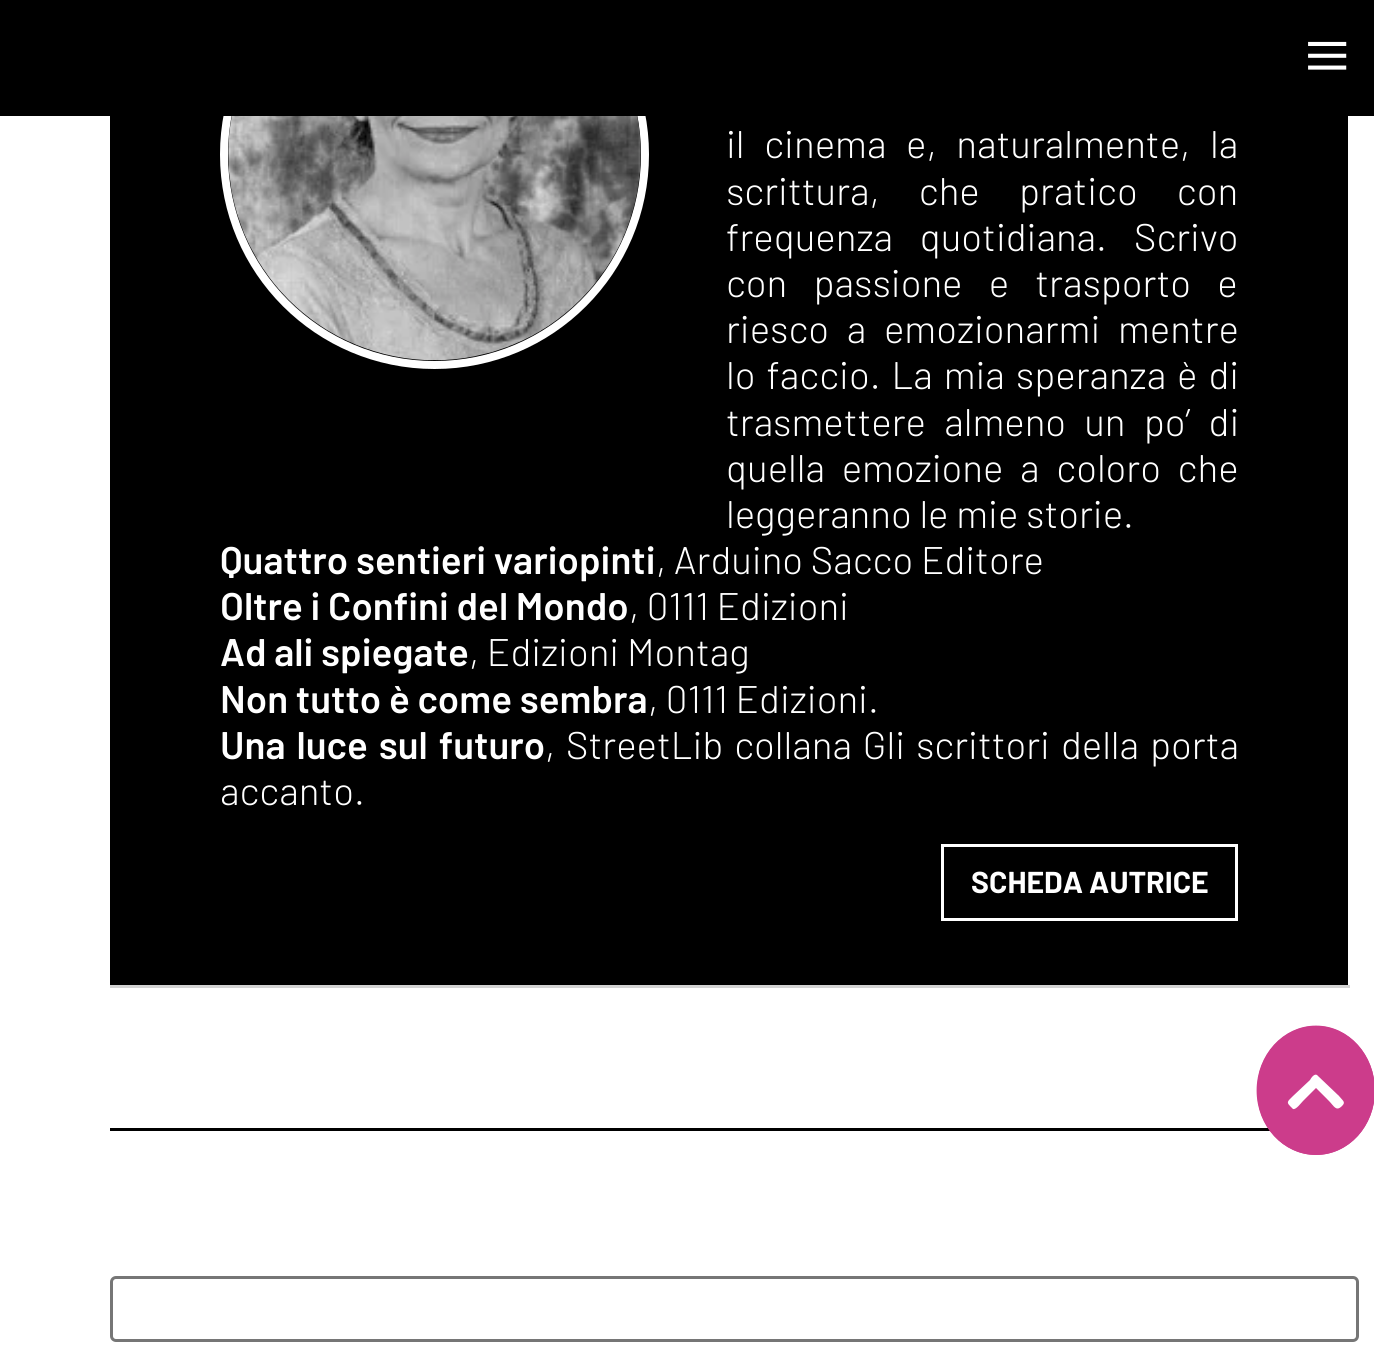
#include <cairo.h>
#include <math.h>
#include <stddef.h>

typedef struct { const char *family; double size; int italic, bold; unsigned color; } style_t;
static cairo_t *ctx;

static void ink(unsigned color) {
    cairo_set_source_rgb(ctx, (color >> 16) / 255.0, (color >> 8 & 255) / 255.0, (color & 255) / 255.0);
}

static void write(double x, double y, const char *s, const style_t *st) {
    cairo_select_font_face(ctx, st->family, st->italic ? CAIRO_FONT_SLANT_ITALIC : CAIRO_FONT_SLANT_NORMAL,
        st->bold ? CAIRO_FONT_WEIGHT_BOLD : CAIRO_FONT_WEIGHT_NORMAL);
    cairo_set_font_size(ctx, st->size);
    ink(st->color);
    cairo_move_to(ctx, x, y);
    cairo_show_text(ctx, s);
}

static void write_spaced(double x, double y, const char *s, double letter, double word) {
    cairo_move_to(ctx, x, y);
    while (*s) {
        char ch[5] = {0};
        int n = 0;
        do ch[n++] = *s++; while ((*s & 0xC0) == 0x80);
        cairo_show_text(ctx, ch);
        cairo_rel_move_to(ctx, letter + word * (*ch == ' '), 0);
    }
}

static void block(double x, double y, double w, double h, unsigned color) {
    ink(color);
    cairo_rectangle(ctx, x, y, w, h);
    cairo_fill(ctx);
}

static void round_path(double x, double y, double w, double h, double r) {
    cairo_new_sub_path(ctx);
    cairo_arc(ctx, x + w - r, y + h - r, r, 0, M_PI / 2);
    cairo_arc(ctx, x + r, y + h - r, r, M_PI / 2, M_PI);
    cairo_arc(ctx, x + r, y + r, r, M_PI, 1.5 * M_PI);
    cairo_arc(ctx, x + w - r, y + r, r, 1.5 * M_PI, 2 * M_PI);
    cairo_close_path(ctx);
}

static void paste(const char *path, double x, double y, double w, double h) {
    cairo_surface_t *image = cairo_image_surface_create_from_png(path);
    cairo_save(ctx);
    cairo_set_source_surface(ctx, image, x, y);
    cairo_rectangle(ctx, x, y, w, h);
    cairo_fill(ctx);
    cairo_restore(ctx);
    cairo_surface_destroy(image);
}

static const style_t s1 = {"Liberation Serif", 82, 0, 0, 0xffffff};
static const style_t s2 = {"Barlow Light", 38.5, 0, 0, 0xffffff};
static const style_t s3 = {"Barlow SemiBold", 38.5, 0, 0, 0xffffff};
static const style_t s4 = {"Barlow", 30.25, 0, 1, 0xffffff};

int main(void) {
    cairo_surface_t *surface = cairo_image_surface_create(CAIRO_FORMAT_RGB24, 1374, 1346);
    ctx = cairo_create(surface);
    cairo_font_options_t *options = cairo_font_options_create();
    cairo_font_options_set_hint_metrics(options, CAIRO_HINT_METRICS_OFF);
    cairo_font_options_set_hint_style(options, CAIRO_HINT_STYLE_NONE);
    cairo_set_font_options(ctx, options);
    cairo_set_miter_limit(ctx, 4);
    ink(0xffffff);
    cairo_paint(ctx);
    block(110, 116, 1238, 869, 0x000000);
    cairo_arc(ctx, 434.5, 154.5, 210.5, 0, 2 * M_PI);
    ink(0xffffff);
    cairo_set_line_width(ctx, 8);
    cairo_stroke(ctx);
    block(0, 0, 1374, 116, 0x000000);
    write(1304, 83, "≡", &s1);
    block(110, 985, 1240, 3, 0xd3d3d3);
    paste("pic1.png", 228, 116, 413, 245);
    cairo_select_font_face(ctx, "Barlow Light", CAIRO_FONT_SLANT_NORMAL, CAIRO_FONT_WEIGHT_NORMAL);
    cairo_set_font_size(ctx, 38.5);
    ink(0xffffff);
    write_spaced(726, 158, "il cinema e, naturalmente, la", 0, 12);
    write_spaced(726, 205, "scrittura, che pratico con", 0, 31.5);
    write_spaced(726, 251, "frequenza quotidiana.", 0, 19);
    write(1134, 251, "Scrivo", &s2);
    write_spaced(726, 297, "con passione e trasporto e", 0, 18.5);
    write_spaced(726, 343, "riesco a emozionarmi mentre", 0, 10);
    write_spaced(726, 389, "lo faccio. La mia speranza è di", 0, 3.25);
    write_spaced(726, 436, "trasmettere almeno un po’ di", 0, 10.5);
    write_spaced(726, 482, "quella emozione a coloro che", 0, 9);
    write(726, 528, "leggeranno le mie storie.", &s2);
    write(220, 574, "Quattro sentieri variopinti", &s3);
    write(656, 574, ", Arduino Sacco Editore", &s2);
    write(220, 620, "Oltre i Confini del Mondo", &s3);
    write(629, 620, ", 0111 Edizioni", &s2);
    write(220, 666, "Ad ali spiegate", &s3);
    write(469, 666, ", Edizioni Montag", &s2);
    write(220, 713, "Non tutto è come sembra", &s3);
    write(648, 713, ", 0111 Edizioni.", &s2);
    cairo_select_font_face(ctx, "Barlow SemiBold", CAIRO_FONT_SLANT_NORMAL, CAIRO_FONT_WEIGHT_NORMAL);
    write_spaced(220, 759, "Una luce sul futuro", 0, 3.25);
    cairo_select_font_face(ctx, "Barlow Light", CAIRO_FONT_SLANT_NORMAL, CAIRO_FONT_WEIGHT_NORMAL);
    write_spaced(545, 759, ", StreetLib collana Gli scrittori della porta", 0, 3.25);
    write(220, 805, "accanto.", &s2);
    cairo_rectangle(ctx, 942.5, 845.5, 294, 74);
    cairo_set_line_width(ctx, 3);
    cairo_stroke(ctx);
    write(971, 893, "SCHEDA AUTRICE", &s4);
    block(110, 1128, 1160, 3, 0x000000);
    round_path(111.5, 1277.5, 1246, 63, 4.5);
    ink(0x767676);
    cairo_stroke(ctx);
    ink(0xcc3c8b);
    cairo_new_path(ctx);
    cairo_move_to(ctx, 1316, 1026);
    cairo_curve_to(ctx, 1348.5, 1026, 1375, 1055, 1375, 1090.5);
    cairo_curve_to(ctx, 1375, 1126, 1348.5, 1155, 1316, 1155);
    cairo_curve_to(ctx, 1283.5, 1155, 1257, 1126, 1257, 1090.5);
    cairo_curve_to(ctx, 1257, 1055, 1283.5, 1026, 1316, 1026);
    cairo_close_path(ctx);
    cairo_fill(ctx);
    cairo_new_path(ctx);
    cairo_move_to(ctx, 1316, 1027);
    cairo_curve_to(ctx, 1348, 1027, 1373.5, 1055.5, 1373.5, 1090.5);
    cairo_curve_to(ctx, 1373.5, 1125.5, 1348, 1153.5, 1316, 1153.5);
    cairo_curve_to(ctx, 1284, 1153.5, 1258, 1125.5, 1258, 1090.5);
    cairo_curve_to(ctx, 1258, 1055.5, 1284, 1027, 1316, 1027);
    cairo_close_path(ctx);
    cairo_set_line_width(ctx, 2.8);
    cairo_stroke(ctx);
    ink(0xffffff);
    cairo_new_path(ctx);
    cairo_move_to(ctx, 1318, 1076);
    cairo_line_to(ctx, 1339, 1096);
    cairo_curve_to(ctx, 1343, 1101, 1346, 1102, 1342, 1106);
    cairo_curve_to(ctx, 1336, 1112, 1334, 1106, 1329, 1101);
    cairo_line_to(ctx, 1316, 1088);
    cairo_line_to(ctx, 1303, 1101);
    cairo_curve_to(ctx, 1301, 1103, 1296, 1110, 1293, 1109);
    cairo_line_to(ctx, 1290, 1106);
    cairo_curve_to(ctx, 1286, 1102, 1288, 1101, 1293, 1096);
    cairo_line_to(ctx, 1310, 1080);
    cairo_curve_to(ctx, 1311, 1078, 1315, 1072, 1318, 1076);
    cairo_close_path(ctx);
    cairo_fill(ctx);
    cairo_surface_write_to_png(surface, "screenshot.png");
    cairo_font_options_destroy(options);
    cairo_destroy(ctx);
    cairo_surface_destroy(surface);
    return 0;
}
